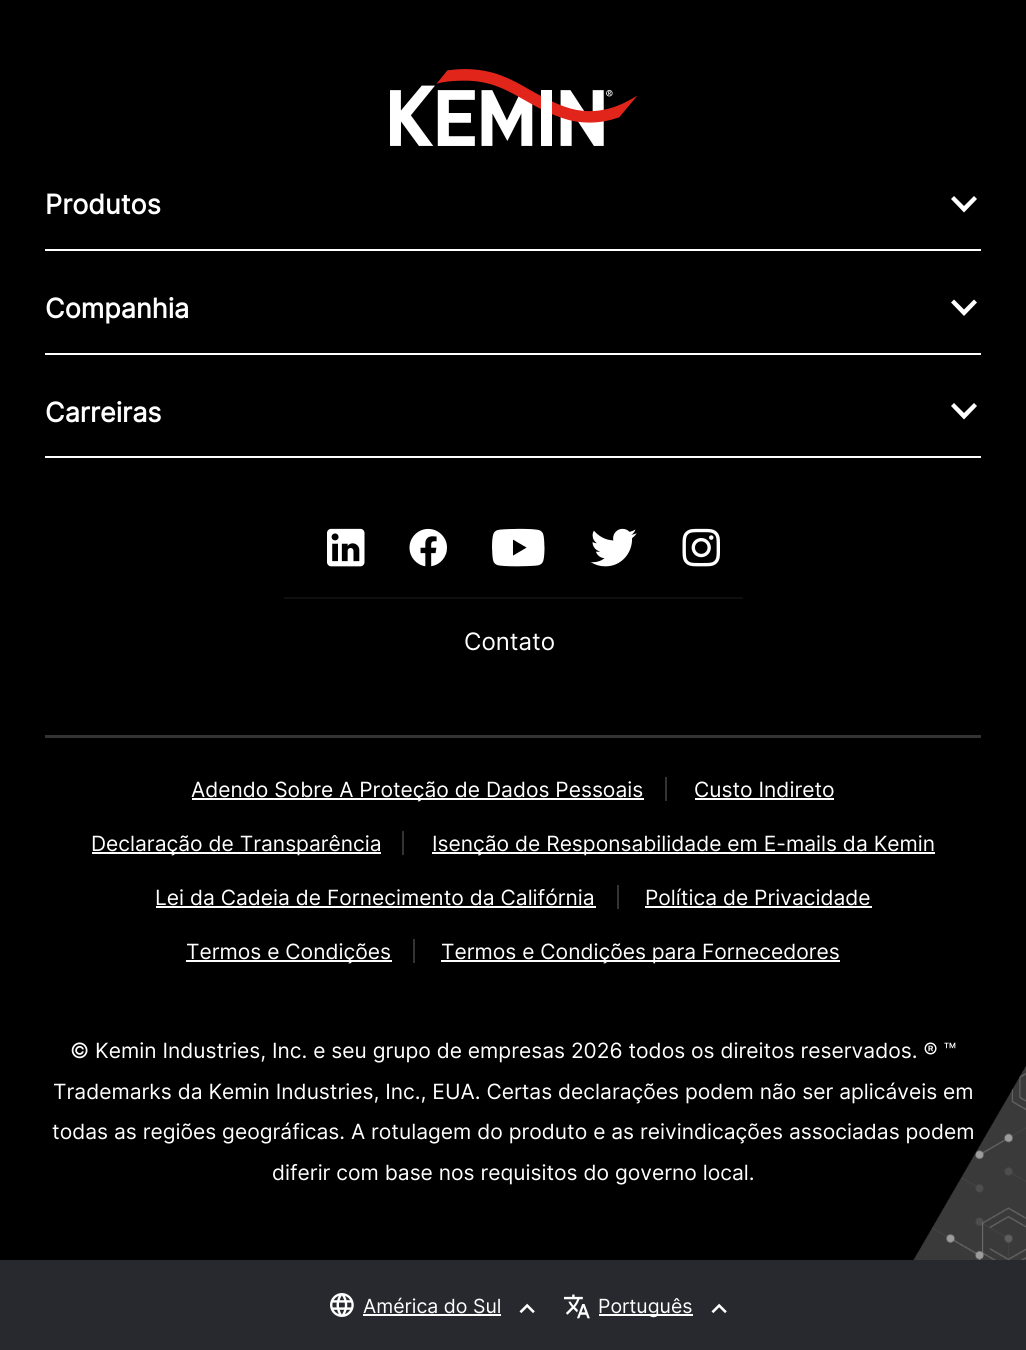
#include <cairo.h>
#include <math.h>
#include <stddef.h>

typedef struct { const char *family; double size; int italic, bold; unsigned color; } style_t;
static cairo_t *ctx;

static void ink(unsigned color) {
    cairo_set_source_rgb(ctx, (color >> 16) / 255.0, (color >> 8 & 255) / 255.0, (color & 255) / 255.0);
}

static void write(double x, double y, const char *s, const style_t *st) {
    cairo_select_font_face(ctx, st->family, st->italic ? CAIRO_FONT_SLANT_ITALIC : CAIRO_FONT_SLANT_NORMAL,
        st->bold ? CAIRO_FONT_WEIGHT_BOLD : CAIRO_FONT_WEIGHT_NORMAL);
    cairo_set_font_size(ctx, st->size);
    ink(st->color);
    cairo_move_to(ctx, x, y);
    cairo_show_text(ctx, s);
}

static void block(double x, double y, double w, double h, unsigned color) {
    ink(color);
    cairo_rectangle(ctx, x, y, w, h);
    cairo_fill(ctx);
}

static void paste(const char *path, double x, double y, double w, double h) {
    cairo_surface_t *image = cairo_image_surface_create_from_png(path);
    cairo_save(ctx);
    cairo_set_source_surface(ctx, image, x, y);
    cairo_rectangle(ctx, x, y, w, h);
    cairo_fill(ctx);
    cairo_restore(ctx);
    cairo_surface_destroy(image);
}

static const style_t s1 = {"Inter", 27, 0, 1, 0xffffff};
static const style_t s2 = {"Inter", 24, 0, 0, 0xffffff};
static const style_t s3 = {"Inter", 21, 0, 0, 0xffffff};
static const style_t s4 = {"Inter", 19.5, 0, 0, 0xffffff};

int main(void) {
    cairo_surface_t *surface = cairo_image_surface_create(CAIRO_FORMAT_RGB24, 1026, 1350);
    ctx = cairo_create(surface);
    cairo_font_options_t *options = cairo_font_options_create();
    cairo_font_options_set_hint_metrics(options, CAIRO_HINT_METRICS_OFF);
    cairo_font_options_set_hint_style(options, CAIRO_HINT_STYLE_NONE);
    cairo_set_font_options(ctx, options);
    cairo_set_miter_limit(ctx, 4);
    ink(0x27292e);
    cairo_paint(ctx);
    block(0, 0, 1026, 1260, 0x000000);
    paste("pic1.png", 390, 69, 248, 77);
    block(45, 249, 936, 2, 0xffffff);
    write(45, 214, "Produtos", &s1);
    cairo_new_path(ctx);
    cairo_move_to(ctx, 954, 196);
    cairo_line_to(ctx, 964, 206);
    cairo_line_to(ctx, 974, 196);
    cairo_line_to(ctx, 977, 199);
    cairo_line_to(ctx, 964, 212.5);
    cairo_line_to(ctx, 951, 199);
    cairo_close_path(ctx);
    cairo_fill(ctx);
    block(45, 353, 936, 2, 0xffffff);
    write(45, 318, "Companhia", &s1);
    cairo_new_path(ctx);
    cairo_move_to(ctx, 954, 299.5);
    cairo_line_to(ctx, 964, 309.5);
    cairo_line_to(ctx, 974, 299.5);
    cairo_line_to(ctx, 977, 302.5);
    cairo_line_to(ctx, 964, 316);
    cairo_line_to(ctx, 951, 302.5);
    cairo_close_path(ctx);
    cairo_fill(ctx);
    block(45, 456, 936, 2, 0xffffff);
    write(45, 422, "Carreiras", &s1);
    cairo_new_path(ctx);
    cairo_move_to(ctx, 954, 403);
    cairo_line_to(ctx, 964, 413);
    cairo_line_to(ctx, 974, 403);
    cairo_line_to(ctx, 977, 406);
    cairo_line_to(ctx, 964, 419.5);
    cairo_line_to(ctx, 951, 406);
    cairo_close_path(ctx);
    cairo_fill(ctx);
    paste("pic2.png", 327, 528, 38, 39);
    paste("pic3.png", 409, 528, 38, 39);
    paste("pic4.png", 492, 528, 53, 39);
    paste("pic5.png", 590, 528, 47, 39);
    paste("pic6.png", 682, 528, 38, 39);
    block(284, 597, 459, 2, 0x0f0f0f);
    write(464, 650, "Contato", &s2);
    block(45, 735, 936, 3, 0x333333);
    block(665, 777, 2, 24, 0x333333);
    block(192, 798, 452, 2, 0xffffff);
    write(191, 797, "Adendo Sobre A Proteção de Dados Pessoais", &s3);
    write(694, 797, "Custo Indireto", &s3);
    block(695, 798, 139, 2, 0xffffff);
    block(402, 831, 2, 24, 0x333333);
    block(92, 852, 289, 2, 0xffffff);
    write(91, 851, "Declaração de Transparência", &s3);
    block(432, 852, 503, 2, 0xffffff);
    write(432, 851, "Isenção de Responsabilidade em E-mails da Kemin", &s3);
    block(617, 885, 2, 24, 0x333333);
    write(155, 905, "Lei da Cadeia de Fornecimento da Califórnia", &s3);
    block(156, 906, 440, 2, 0xffffff);
    write(645, 905, "Política de Privacidade", &s3);
    block(645, 906, 227, 2, 0xffffff);
    block(413, 939, 2, 24, 0x333333);
    block(186, 960, 206, 2, 0xffffff);
    write(186, 959, "Termos e Condições", &s3);
    block(441, 960, 399, 2, 0xffffff);
    write(441, 959, "Termos e Condições para Fornecedores", &s3);
    write(70, 1058, "© Kemin Industries, Inc. e seu grupo de empresas 2026 todos os direitos reservados. ® ™", &s3);
    write(53, 1099, "Trademarks da Kemin Industries, Inc., EUA. Certas declarações podem não ser aplicáveis em", &s3);
    write(52, 1139, "todas as regiões geográficas. A rotulagem do produto e as reivindicações associadas podem", &s3);
    write(272, 1180, "diferir com base nos requisitos do governo local.", &s3);
    paste("pic7.png", 913, 1066, 113, 194);
    paste("pic8.png", 330, 1293, 24, 24);
    write(363, 1313, "América do Sul", &s4);
    block(363, 1314, 138, 2, 0xffffff);
    paste("pic9.png", 519, 1303, 16, 11);
    paste("pic10.png", 564, 1294, 26, 25);
    block(599, 1314, 94, 2, 0xffffff);
    write(598, 1313, "Português", &s4);
    paste("pic9.png", 711, 1303, 16, 11);
    cairo_surface_write_to_png(surface, "screenshot.png");
    cairo_font_options_destroy(options);
    cairo_destroy(ctx);
    cairo_surface_destroy(surface);
    return 0;
}
